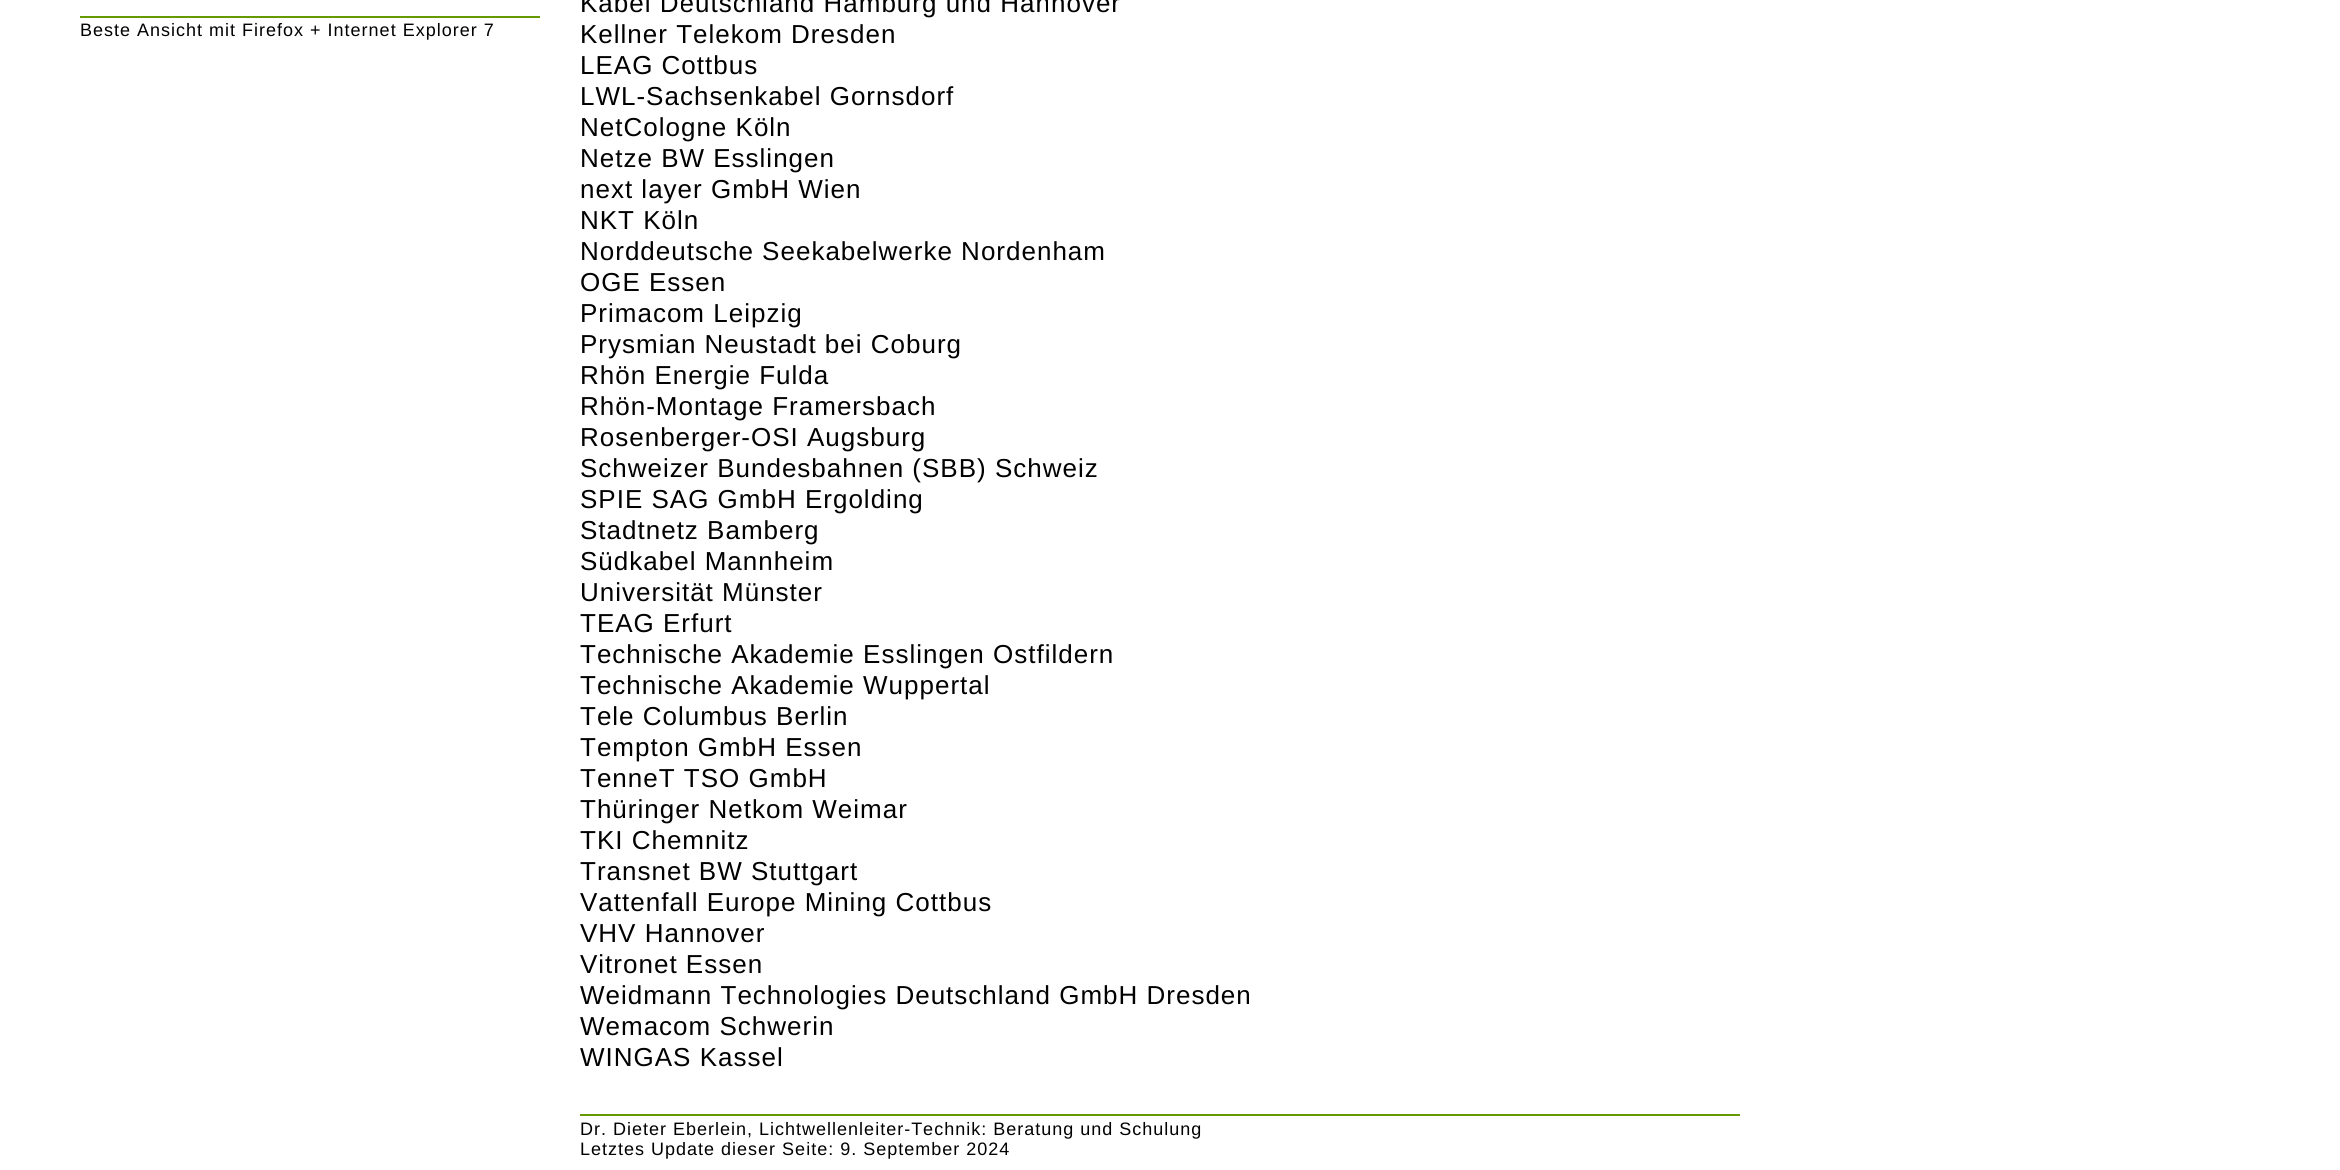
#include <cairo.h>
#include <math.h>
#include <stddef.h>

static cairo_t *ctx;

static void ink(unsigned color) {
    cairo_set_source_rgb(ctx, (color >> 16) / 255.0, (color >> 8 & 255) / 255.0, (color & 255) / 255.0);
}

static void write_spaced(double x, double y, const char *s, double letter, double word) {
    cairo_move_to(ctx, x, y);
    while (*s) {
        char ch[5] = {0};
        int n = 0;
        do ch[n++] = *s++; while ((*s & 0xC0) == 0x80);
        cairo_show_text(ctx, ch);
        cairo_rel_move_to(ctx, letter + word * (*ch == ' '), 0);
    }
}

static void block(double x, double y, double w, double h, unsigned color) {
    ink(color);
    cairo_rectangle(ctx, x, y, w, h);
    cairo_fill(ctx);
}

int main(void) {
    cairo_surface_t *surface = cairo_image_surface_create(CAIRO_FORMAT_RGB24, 2340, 1170);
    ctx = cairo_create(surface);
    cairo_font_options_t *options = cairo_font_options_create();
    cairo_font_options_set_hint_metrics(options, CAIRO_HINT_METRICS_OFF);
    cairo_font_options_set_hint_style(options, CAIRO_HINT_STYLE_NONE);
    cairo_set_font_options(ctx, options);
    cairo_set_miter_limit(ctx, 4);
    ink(0xffffff);
    cairo_paint(ctx);
    block(80, 16, 460, 2, 0x669900);
    cairo_select_font_face(ctx, "Liberation Sans", CAIRO_FONT_SLANT_NORMAL, CAIRO_FONT_WEIGHT_NORMAL);
    cairo_set_font_size(ctx, 18);
    ink(0x000000);
    write_spaced(80, 36, "Beste Ansicht mit Firefox + Internet Explorer 7", 1, 0);
    cairo_set_font_size(ctx, 26);
    write_spaced(580, 12, "Kabel Deutschland Hamburg und Hannover", 1, 0);
    write_spaced(580, 43, "Kellner Telekom Dresden", 1, 0);
    write_spaced(580, 74, "LEAG Cottbus", 1, 0);
    write_spaced(580, 105, "LWL-Sachsenkabel Gornsdorf", 1, 0);
    write_spaced(580, 136, "NetCologne Köln", 1, 0);
    write_spaced(580, 167, "Netze BW Esslingen", 1, 0);
    write_spaced(580, 198, "next layer GmbH Wien", 1, 0);
    write_spaced(580, 229, "NKT Köln", 1, 0);
    write_spaced(580, 260, "Norddeutsche Seekabelwerke Nordenham", 1, 0);
    write_spaced(580, 291, "OGE Essen", 1, 0);
    write_spaced(580, 322, "Primacom Leipzig", 1, 0);
    write_spaced(580, 353, "Prysmian Neustadt bei Coburg", 1, 0);
    write_spaced(580, 384, "Rhön Energie Fulda", 1, 0);
    write_spaced(580, 415, "Rhön-Montage Framersbach", 1, 0);
    write_spaced(580, 446, "Rosenberger-OSI Augsburg", 1, 0);
    write_spaced(580, 477, "Schweizer Bundesbahnen (SBB) Schweiz", 1, 0);
    write_spaced(580, 508, "SPIE SAG GmbH Ergolding", 1, 0);
    write_spaced(580, 539, "Stadtnetz Bamberg", 1, 0);
    write_spaced(580, 570, "Südkabel Mannheim", 1, 0);
    write_spaced(580, 601, "Universität Münster", 1, 0);
    write_spaced(580, 632, "TEAG Erfurt", 1, 0);
    write_spaced(580, 663, "Technische Akademie Esslingen Ostfildern", 1, 0);
    write_spaced(580, 694, "Technische Akademie Wuppertal", 1, 0);
    write_spaced(580, 725, "Tele Columbus Berlin", 1, 0);
    write_spaced(580, 756, "Tempton GmbH Essen", 1, 0);
    write_spaced(580, 787, "TenneT TSO GmbH", 1, 0);
    write_spaced(580, 818, "Thüringer Netkom Weimar", 1, 0);
    write_spaced(580, 849, "TKI Chemnitz", 1, 0);
    write_spaced(580, 880, "Transnet BW Stuttgart", 1, 0);
    write_spaced(580, 911, "Vattenfall Europe Mining Cottbus", 1, 0);
    write_spaced(580, 942, "VHV Hannover", 1, 0);
    write_spaced(580, 973, "Vitronet Essen", 1, 0);
    write_spaced(580, 1004, "Weidmann Technologies Deutschland GmbH Dresden", 1, 0);
    write_spaced(580, 1035, "Wemacom Schwerin", 1, 0);
    write_spaced(580, 1066, "WINGAS Kassel", 1, 0);
    block(580, 1114, 1160, 2, 0x669900);
    cairo_set_font_size(ctx, 18);
    ink(0x000000);
    write_spaced(580, 1135, "Dr. Dieter Eberlein, Lichtwellenleiter-Technik: Beratung und Schulung", 1, 0);
    write_spaced(580, 1155, "Letztes Update dieser Seite: 9. September 2024", 1, 0);
    cairo_surface_write_to_png(surface, "screenshot.png");
    cairo_font_options_destroy(options);
    cairo_destroy(ctx);
    cairo_surface_destroy(surface);
    return 0;
}
